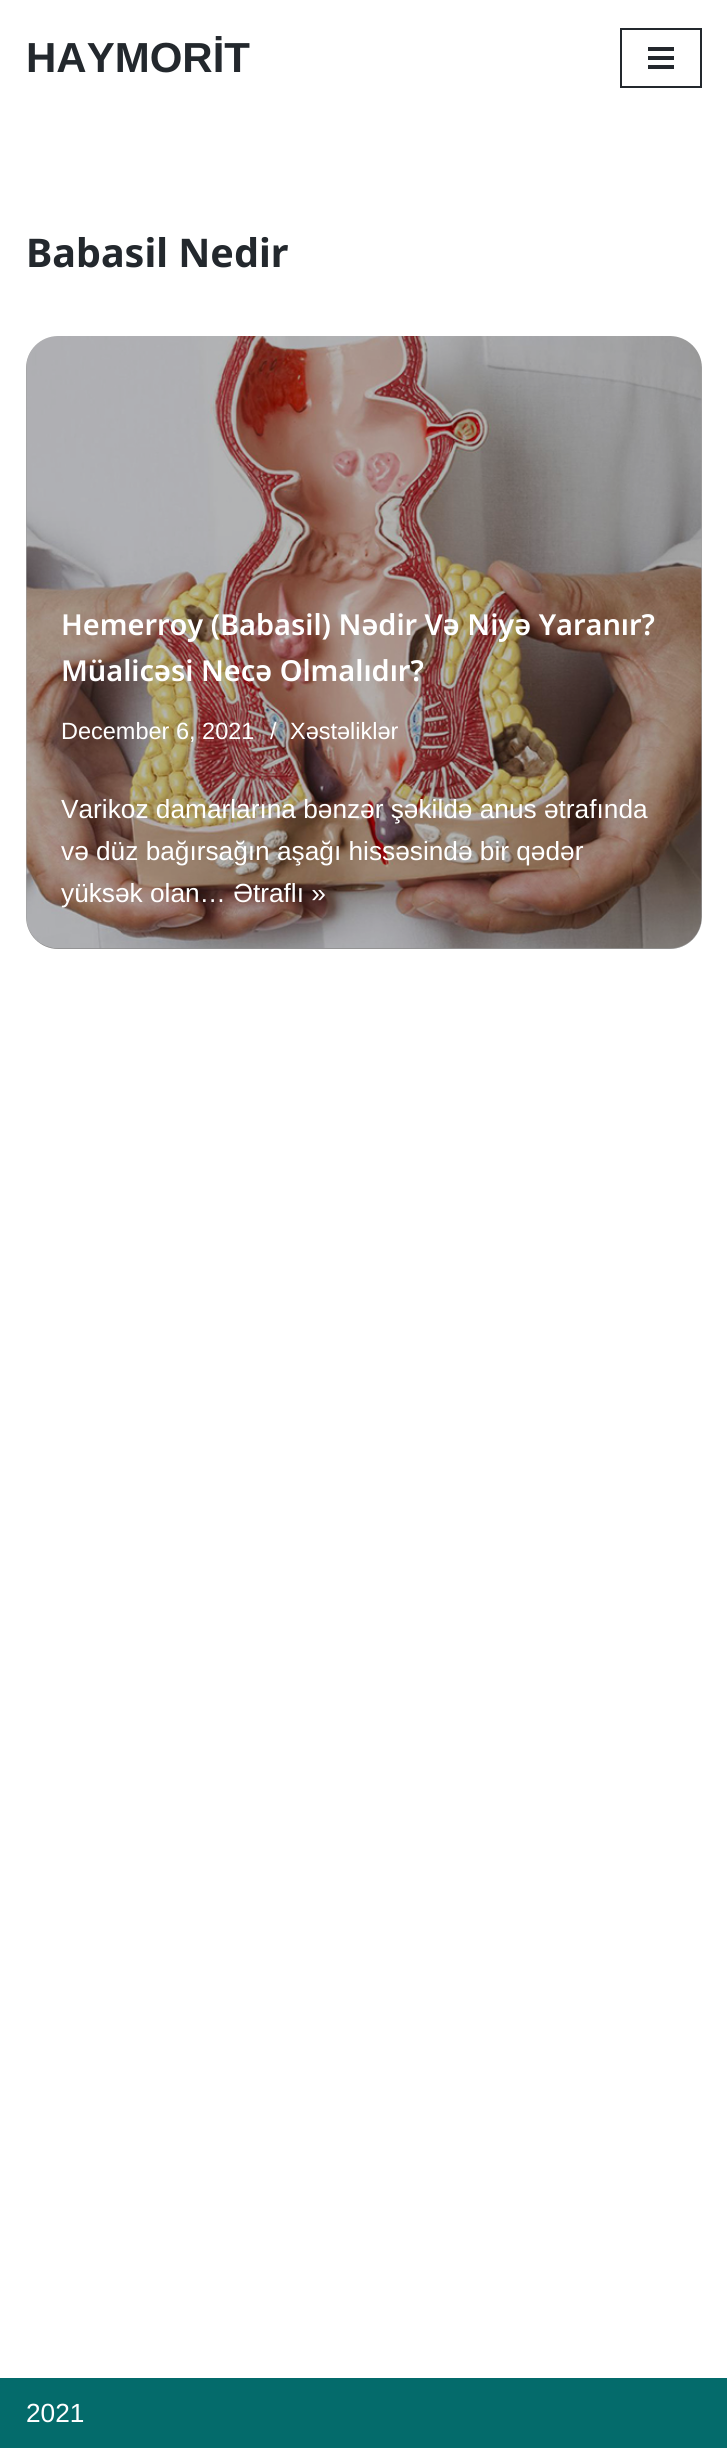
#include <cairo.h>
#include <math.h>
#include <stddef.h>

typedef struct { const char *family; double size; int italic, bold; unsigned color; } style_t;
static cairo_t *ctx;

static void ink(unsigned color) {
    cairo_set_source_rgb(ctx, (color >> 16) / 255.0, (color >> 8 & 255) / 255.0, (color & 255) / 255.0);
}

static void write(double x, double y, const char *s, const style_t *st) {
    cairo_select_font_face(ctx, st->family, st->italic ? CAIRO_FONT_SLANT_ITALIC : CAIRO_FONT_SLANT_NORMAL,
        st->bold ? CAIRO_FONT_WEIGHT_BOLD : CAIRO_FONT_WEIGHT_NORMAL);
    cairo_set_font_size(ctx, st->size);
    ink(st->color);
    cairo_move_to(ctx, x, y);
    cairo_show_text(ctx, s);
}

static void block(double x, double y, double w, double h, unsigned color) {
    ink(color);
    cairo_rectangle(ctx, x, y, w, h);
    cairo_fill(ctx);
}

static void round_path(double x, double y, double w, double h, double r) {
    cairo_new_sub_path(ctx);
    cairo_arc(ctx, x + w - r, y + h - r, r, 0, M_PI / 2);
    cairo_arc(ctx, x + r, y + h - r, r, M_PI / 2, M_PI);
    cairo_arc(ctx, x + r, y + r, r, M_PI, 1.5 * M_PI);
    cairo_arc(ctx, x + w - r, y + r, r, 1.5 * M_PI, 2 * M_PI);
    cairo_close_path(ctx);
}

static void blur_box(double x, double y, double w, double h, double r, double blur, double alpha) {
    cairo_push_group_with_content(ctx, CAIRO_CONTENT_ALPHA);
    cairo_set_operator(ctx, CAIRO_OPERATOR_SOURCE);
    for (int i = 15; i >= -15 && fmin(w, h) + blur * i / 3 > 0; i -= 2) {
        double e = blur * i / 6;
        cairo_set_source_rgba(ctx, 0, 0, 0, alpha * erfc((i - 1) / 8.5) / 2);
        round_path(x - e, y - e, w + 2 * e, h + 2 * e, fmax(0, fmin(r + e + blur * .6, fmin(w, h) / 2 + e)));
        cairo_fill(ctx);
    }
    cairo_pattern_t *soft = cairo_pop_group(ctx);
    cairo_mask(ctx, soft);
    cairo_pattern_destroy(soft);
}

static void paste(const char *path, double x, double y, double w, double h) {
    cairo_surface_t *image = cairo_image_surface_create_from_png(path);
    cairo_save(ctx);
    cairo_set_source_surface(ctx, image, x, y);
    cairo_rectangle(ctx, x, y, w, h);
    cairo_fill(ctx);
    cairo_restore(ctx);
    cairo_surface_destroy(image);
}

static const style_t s1 = {"Liberation Sans", 42, 0, 1, 0x23282d};
static const style_t s2 = {"Noto Sans", 39.5, 0, 1, 0x23282d};
static const style_t s3 = {"Noto Sans SemiBold", 28.9, 0, 0, 0xffffff};
static const style_t s4 = {"Liberation Sans", 23.5, 0, 0, 0xffffff};
static const style_t s5 = {"Liberation Sans", 26.25, 0, 0, 0xffffff};

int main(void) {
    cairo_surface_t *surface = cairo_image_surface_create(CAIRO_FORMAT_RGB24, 727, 2448);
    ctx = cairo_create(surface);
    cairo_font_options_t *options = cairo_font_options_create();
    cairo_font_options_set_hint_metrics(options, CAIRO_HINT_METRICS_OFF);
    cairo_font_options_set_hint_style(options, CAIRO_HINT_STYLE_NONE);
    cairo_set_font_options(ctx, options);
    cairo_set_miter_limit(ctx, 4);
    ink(0xffffff);
    cairo_paint(ctx);
    write(26, 72, "HAYMORİT", &s1);
    cairo_rectangle(ctx, 621, 29, 80, 58);
    cairo_stroke(ctx);
    block(648, 47, 26, 4, 0x23282d);
    block(648, 56, 26, 4, 0x23282d);
    block(648, 65, 26, 4, 0x23282d);
    write(26, 267, "Babasil Nedir", &s2);
    cairo_save(ctx);
    round_path(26, 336, 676, 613, 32);
    cairo_clip(ctx);
    ink(0x000000);
    blur_box(26, 354, 676, 612, 0, 9, 0.12);
    blur_box(26, 361, 676, 612, 0, 24.5, 0.12);
    cairo_restore(ctx);
    paste("pic1.png", 26, 336, 676, 613);
    cairo_set_source_rgba(ctx, 0, 0, 0, 0.29);
    round_path(26, 336, 676, 613, 32);
    cairo_fill(ctx);
    write(61, 635, "Hemerroy (Babasil) Nədir Və Niyə Yaranır?", &s3);
    write(61, 681, "Müalicəsi Necə Olmalıdır?", &s3);
    write(61, 739, "December 6, 2021", &s4);
    write(270, 739, "/", &s4);
    write(290, 739, "Xəstəliklər", &s4);
    write(61, 818, "Varikoz damarlarına bənzər şəkildə anus ətrafında", &s5);
    write(61, 860, "və düz bağırsağın aşağı hissəsində bir qədər", &s5);
    write(61, 902, "yüksək olan… Ətraflı »", &s5);
    block(0, 2378, 727, 70, 0x046b6b);
    write(26, 2422, "2021", &s5);
    cairo_surface_write_to_png(surface, "screenshot.png");
    cairo_font_options_destroy(options);
    cairo_destroy(ctx);
    cairo_surface_destroy(surface);
    return 0;
}
